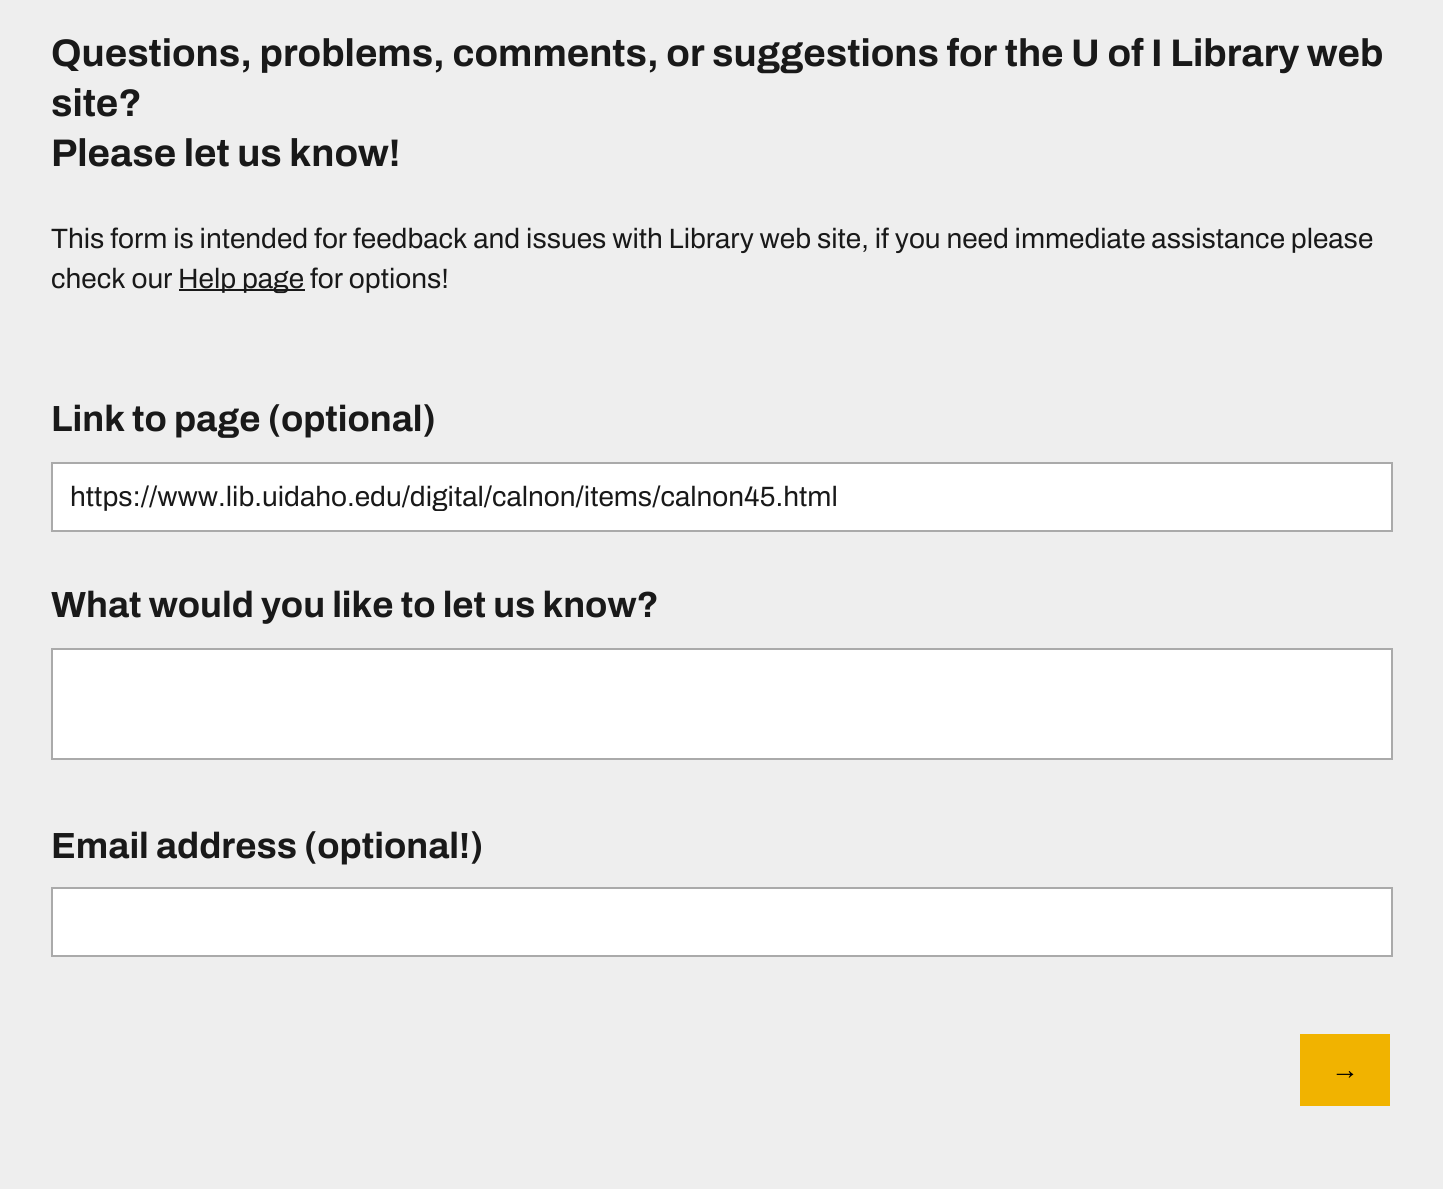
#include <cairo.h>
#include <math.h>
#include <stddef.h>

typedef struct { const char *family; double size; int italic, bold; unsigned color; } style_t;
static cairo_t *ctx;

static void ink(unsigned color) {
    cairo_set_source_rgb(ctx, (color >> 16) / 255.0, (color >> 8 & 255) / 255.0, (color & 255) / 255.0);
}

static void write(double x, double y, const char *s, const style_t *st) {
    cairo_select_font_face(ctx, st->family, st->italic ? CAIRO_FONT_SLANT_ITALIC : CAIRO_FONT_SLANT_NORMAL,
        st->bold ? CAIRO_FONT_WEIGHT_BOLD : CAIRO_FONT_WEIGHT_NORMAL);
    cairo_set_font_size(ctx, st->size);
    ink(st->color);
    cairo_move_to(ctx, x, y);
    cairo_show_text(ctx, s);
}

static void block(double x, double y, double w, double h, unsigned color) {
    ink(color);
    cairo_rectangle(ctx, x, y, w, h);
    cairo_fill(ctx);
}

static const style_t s1 = {"Archivo", 38.5, 0, 1, 0x191919};
static const style_t s2 = {"Archivo", 28, 0, 0, 0x191919};
static const style_t s3 = {"Archivo", 36.4, 0, 1, 0x191919};
static const style_t s4 = {"Liberation Sans", 28, 0, 1, 0x000000};

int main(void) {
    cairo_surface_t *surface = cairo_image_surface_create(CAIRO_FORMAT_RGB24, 1443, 1189);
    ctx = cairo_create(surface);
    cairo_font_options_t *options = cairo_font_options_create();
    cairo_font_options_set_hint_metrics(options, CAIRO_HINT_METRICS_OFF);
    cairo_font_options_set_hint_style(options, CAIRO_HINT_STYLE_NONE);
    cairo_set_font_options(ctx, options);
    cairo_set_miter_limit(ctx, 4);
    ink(0xeeeeee);
    cairo_paint(ctx);
    write(51, 66, "Questions, problems, comments, or suggestions for the U of I Library web", &s1);
    write(51, 116, "site?", &s1);
    write(51, 166, "Please let us know!", &s1);
    write(51, 248, "This form is intended for feedback and issues with Library web site, if you need immediate assistance please", &s2);
    write(51, 288, "check our", &s2);
    block(179, 289, 126, 2, 0x191919);
    write(178, 288, "Help page for options!", &s2);
    write(51, 431, "Link to page (optional)", &s3);
    ink(0xffffff);
    cairo_rectangle(ctx, 52, 463, 1340, 68);
    cairo_fill_preserve(ctx);
    ink(0xaaaaaa);
    cairo_stroke(ctx);
    cairo_save(ctx);
    cairo_rectangle(ctx, 70, 481, 1304, 30);
    cairo_clip(ctx);
    write(70, 506, "https://www.lib.uidaho.edu/digital/calnon/items/calnon45.html", &s2);
    cairo_restore(ctx);
    write(51, 617, "What would you like to let us know?", &s3);
    ink(0xffffff);
    cairo_rectangle(ctx, 52, 649, 1340, 110);
    cairo_fill_preserve(ctx);
    ink(0xaaaaaa);
    cairo_stroke(ctx);
    write(51, 858, "Email address (optional!)", &s3);
    ink(0xffffff);
    cairo_rectangle(ctx, 52, 888, 1340, 68);
    cairo_fill_preserve(ctx);
    ink(0xaaaaaa);
    cairo_stroke(ctx);
    block(1300, 1034, 90, 72, 0xf1b300);
    write(1331, 1079, "→", &s4);
    cairo_surface_write_to_png(surface, "screenshot.png");
    cairo_font_options_destroy(options);
    cairo_destroy(ctx);
    cairo_surface_destroy(surface);
    return 0;
}
